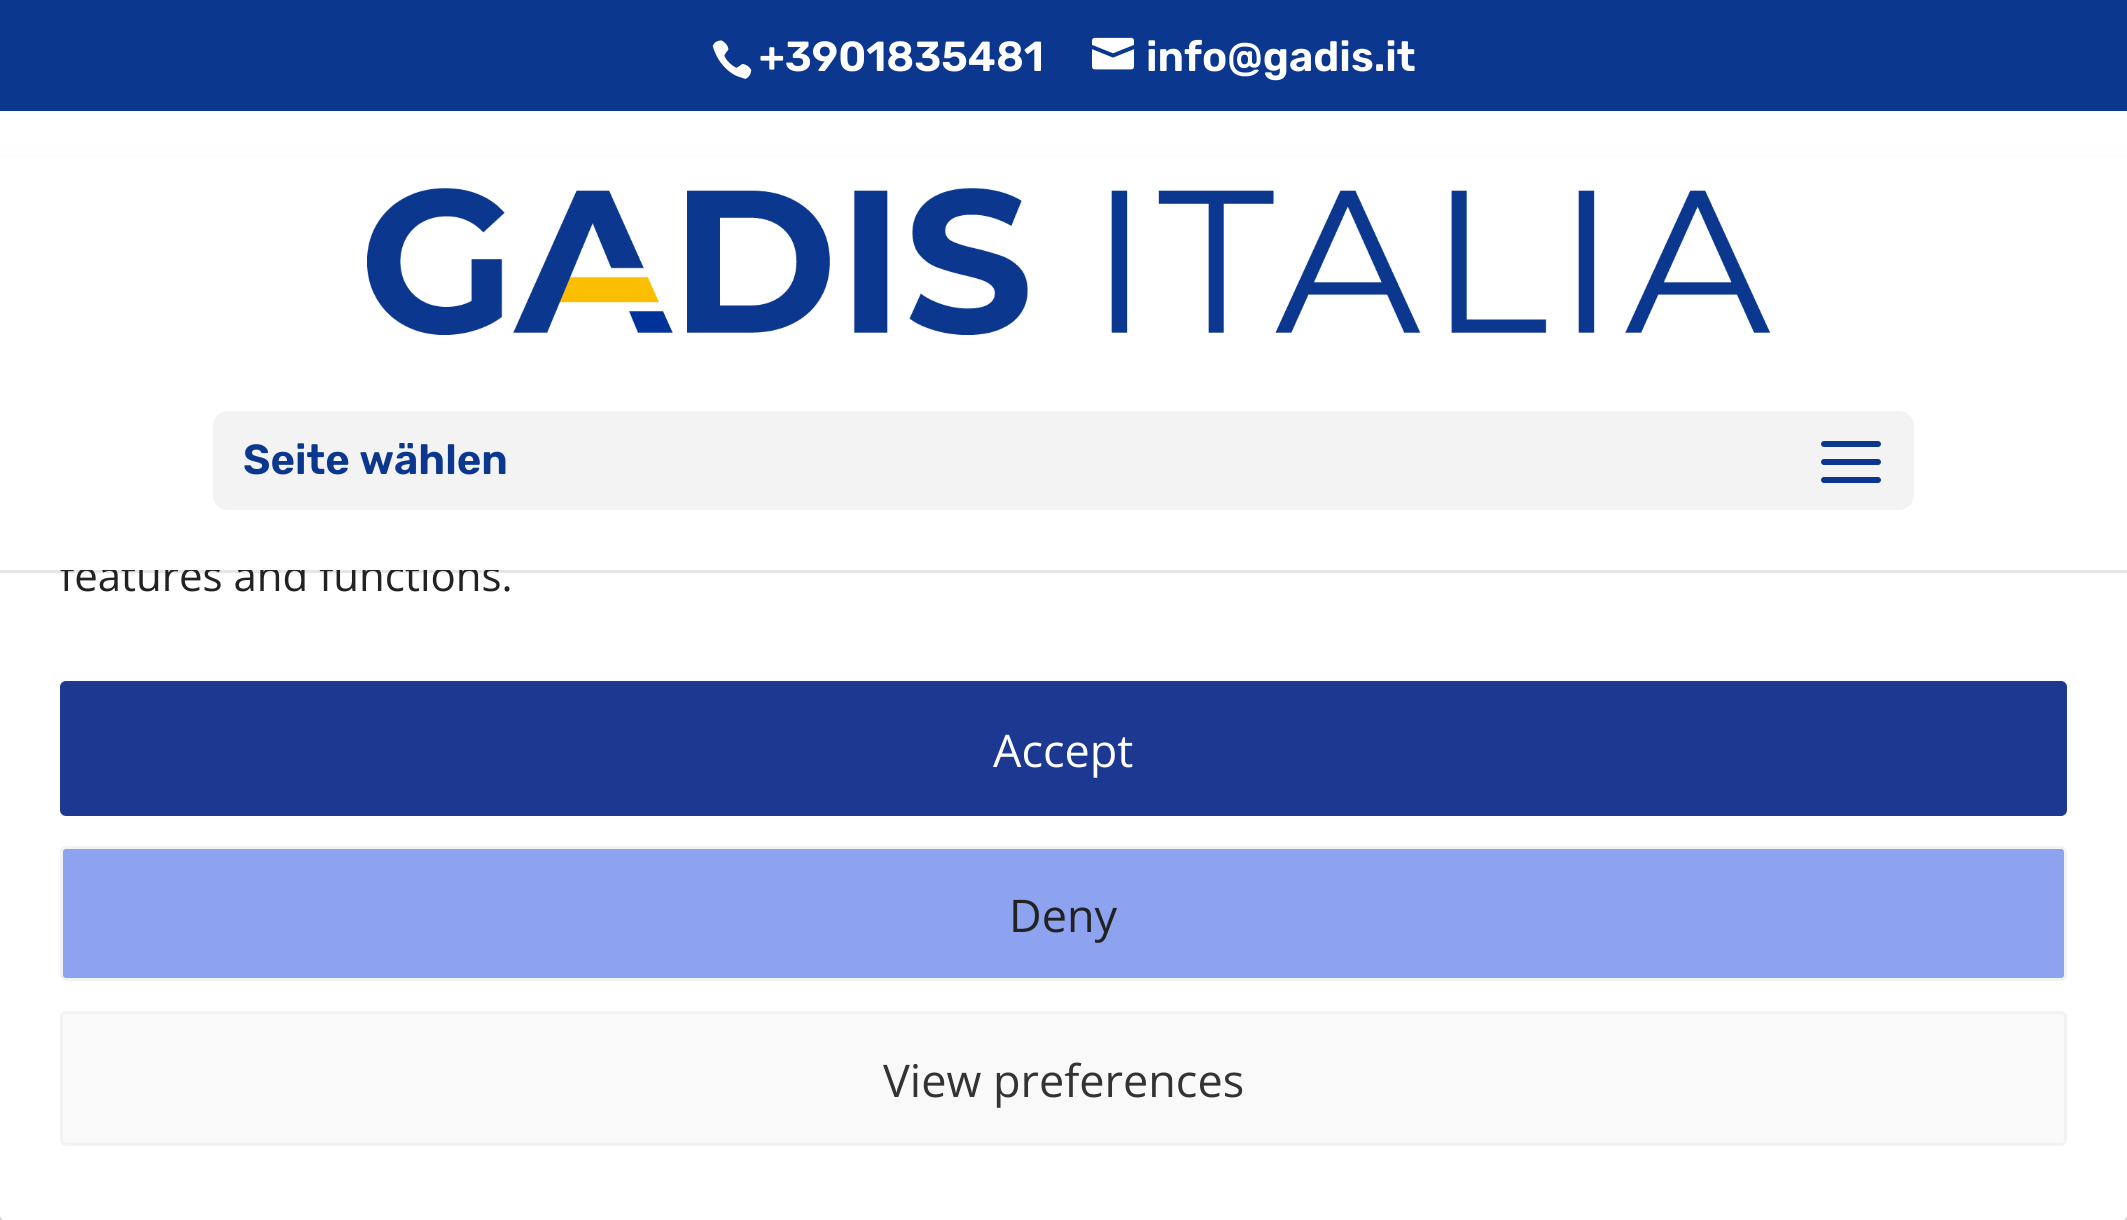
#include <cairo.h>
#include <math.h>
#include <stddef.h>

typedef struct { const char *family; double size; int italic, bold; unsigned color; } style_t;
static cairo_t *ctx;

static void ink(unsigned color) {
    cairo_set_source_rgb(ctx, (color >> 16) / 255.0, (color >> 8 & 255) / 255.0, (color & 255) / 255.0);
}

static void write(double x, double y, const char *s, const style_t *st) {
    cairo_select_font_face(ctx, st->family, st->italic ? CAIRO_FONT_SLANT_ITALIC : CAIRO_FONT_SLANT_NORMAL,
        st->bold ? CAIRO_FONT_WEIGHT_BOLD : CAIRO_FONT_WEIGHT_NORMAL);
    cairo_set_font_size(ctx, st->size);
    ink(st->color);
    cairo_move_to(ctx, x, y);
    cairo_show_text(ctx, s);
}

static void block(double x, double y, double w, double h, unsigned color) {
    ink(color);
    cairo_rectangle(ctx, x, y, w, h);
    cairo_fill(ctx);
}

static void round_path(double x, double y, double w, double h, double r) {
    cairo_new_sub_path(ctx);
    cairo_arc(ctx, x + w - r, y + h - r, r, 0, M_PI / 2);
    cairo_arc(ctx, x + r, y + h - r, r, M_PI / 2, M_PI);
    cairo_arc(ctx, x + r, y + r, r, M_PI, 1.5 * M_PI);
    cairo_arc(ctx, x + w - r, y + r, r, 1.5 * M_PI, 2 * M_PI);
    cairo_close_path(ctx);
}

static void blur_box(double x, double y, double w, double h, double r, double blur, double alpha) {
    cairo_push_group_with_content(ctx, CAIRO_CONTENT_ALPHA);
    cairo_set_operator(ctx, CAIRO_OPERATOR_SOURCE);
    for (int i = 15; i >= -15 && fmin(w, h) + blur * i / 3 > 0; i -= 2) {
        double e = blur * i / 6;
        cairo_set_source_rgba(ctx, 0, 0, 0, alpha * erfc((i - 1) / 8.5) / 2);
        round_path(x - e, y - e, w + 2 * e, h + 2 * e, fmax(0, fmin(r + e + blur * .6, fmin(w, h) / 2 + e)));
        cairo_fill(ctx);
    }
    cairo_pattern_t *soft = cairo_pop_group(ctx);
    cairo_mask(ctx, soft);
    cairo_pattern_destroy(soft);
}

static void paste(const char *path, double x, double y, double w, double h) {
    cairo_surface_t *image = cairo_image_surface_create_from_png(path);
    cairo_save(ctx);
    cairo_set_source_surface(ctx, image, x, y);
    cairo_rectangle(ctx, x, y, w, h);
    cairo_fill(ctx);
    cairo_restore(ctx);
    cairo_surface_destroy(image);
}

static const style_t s1 = {"Rubik SemiBold", 42, 0, 0, 0xffffff};
static const style_t s2 = {"Open Sans", 42, 0, 0, 0x222222};
static const style_t s3 = {"Rubik SemiBold", 42, 0, 0, 0x0c378f};
static const style_t s4 = {"Open Sans", 45, 0, 0, 0xffffff};
static const style_t s5 = {"Open Sans", 45, 0, 0, 0x222222};
static const style_t s6 = {"Open Sans", 45, 0, 0, 0x333333};

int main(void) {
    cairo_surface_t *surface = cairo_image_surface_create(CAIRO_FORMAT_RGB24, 2127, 1220);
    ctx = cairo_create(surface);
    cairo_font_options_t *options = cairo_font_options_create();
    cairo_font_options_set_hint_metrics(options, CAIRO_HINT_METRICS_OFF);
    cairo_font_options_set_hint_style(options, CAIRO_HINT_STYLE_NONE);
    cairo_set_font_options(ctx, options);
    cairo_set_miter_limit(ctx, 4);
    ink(0xffffff);
    cairo_paint(ctx);
    block(0, 0, 2127, 111, 0x0c378f);
    paste("pic1.png", 712, 40, 40, 39);
    write(759, 71, "+3901835481", &s1);
    paste("pic2.png", 1092, 37, 42, 33);
    write(1146, 71, "info@gadis.it", &s1);
    ink(0x000000);
    blur_box(0, 195, 2127, 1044, 6, 9, 0.23);
    blur_box(0, 207, 2127, 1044, 6, 30, 0.19);
    ink(0xffffff);
    round_path(0, 177, 2127, 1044, 6);
    cairo_fill(ctx);
    cairo_set_source_rgba(ctx, 0, 0, 0, 0.1);
    cairo_rectangle(ctx, 0, 570, 2127, 3);
    cairo_fill(ctx);
    write(60, 591, "features and functions.", &s2);
    block(0, 158, 2127, 412, 0xffffff);
    paste("pic3.png", 367, 188, 1404, 147);
    ink(0xf3f3f3);
    round_path(213, 411, 1701, 99, 15);
    cairo_fill(ctx);
    write(243, 474, "Seite wählen", &s3);
    paste("pic4.png", 1821, 441, 60, 42);
    ink(0x1c3890);
    round_path(61.5, 682.5, 2004, 132, 4.5);
    cairo_fill_preserve(ctx);
    cairo_set_line_width(ctx, 3);
    cairo_stroke(ctx);
    write(993, 767, "Accept", &s4);
    ink(0x8da3ef);
    round_path(61.5, 847.5, 2004, 132, 4.5);
    cairo_fill_preserve(ctx);
    ink(0xf2f2f2);
    cairo_stroke(ctx);
    write(1009, 932, "Deny", &s5);
    ink(0xf9f9f9);
    round_path(61.5, 1012.5, 2004, 132, 4.5);
    cairo_fill_preserve(ctx);
    ink(0xf2f2f2);
    cairo_stroke(ctx);
    write(883, 1097, "View preferences", &s6);
    cairo_surface_write_to_png(surface, "screenshot.png");
    cairo_font_options_destroy(options);
    cairo_destroy(ctx);
    cairo_surface_destroy(surface);
    return 0;
}
